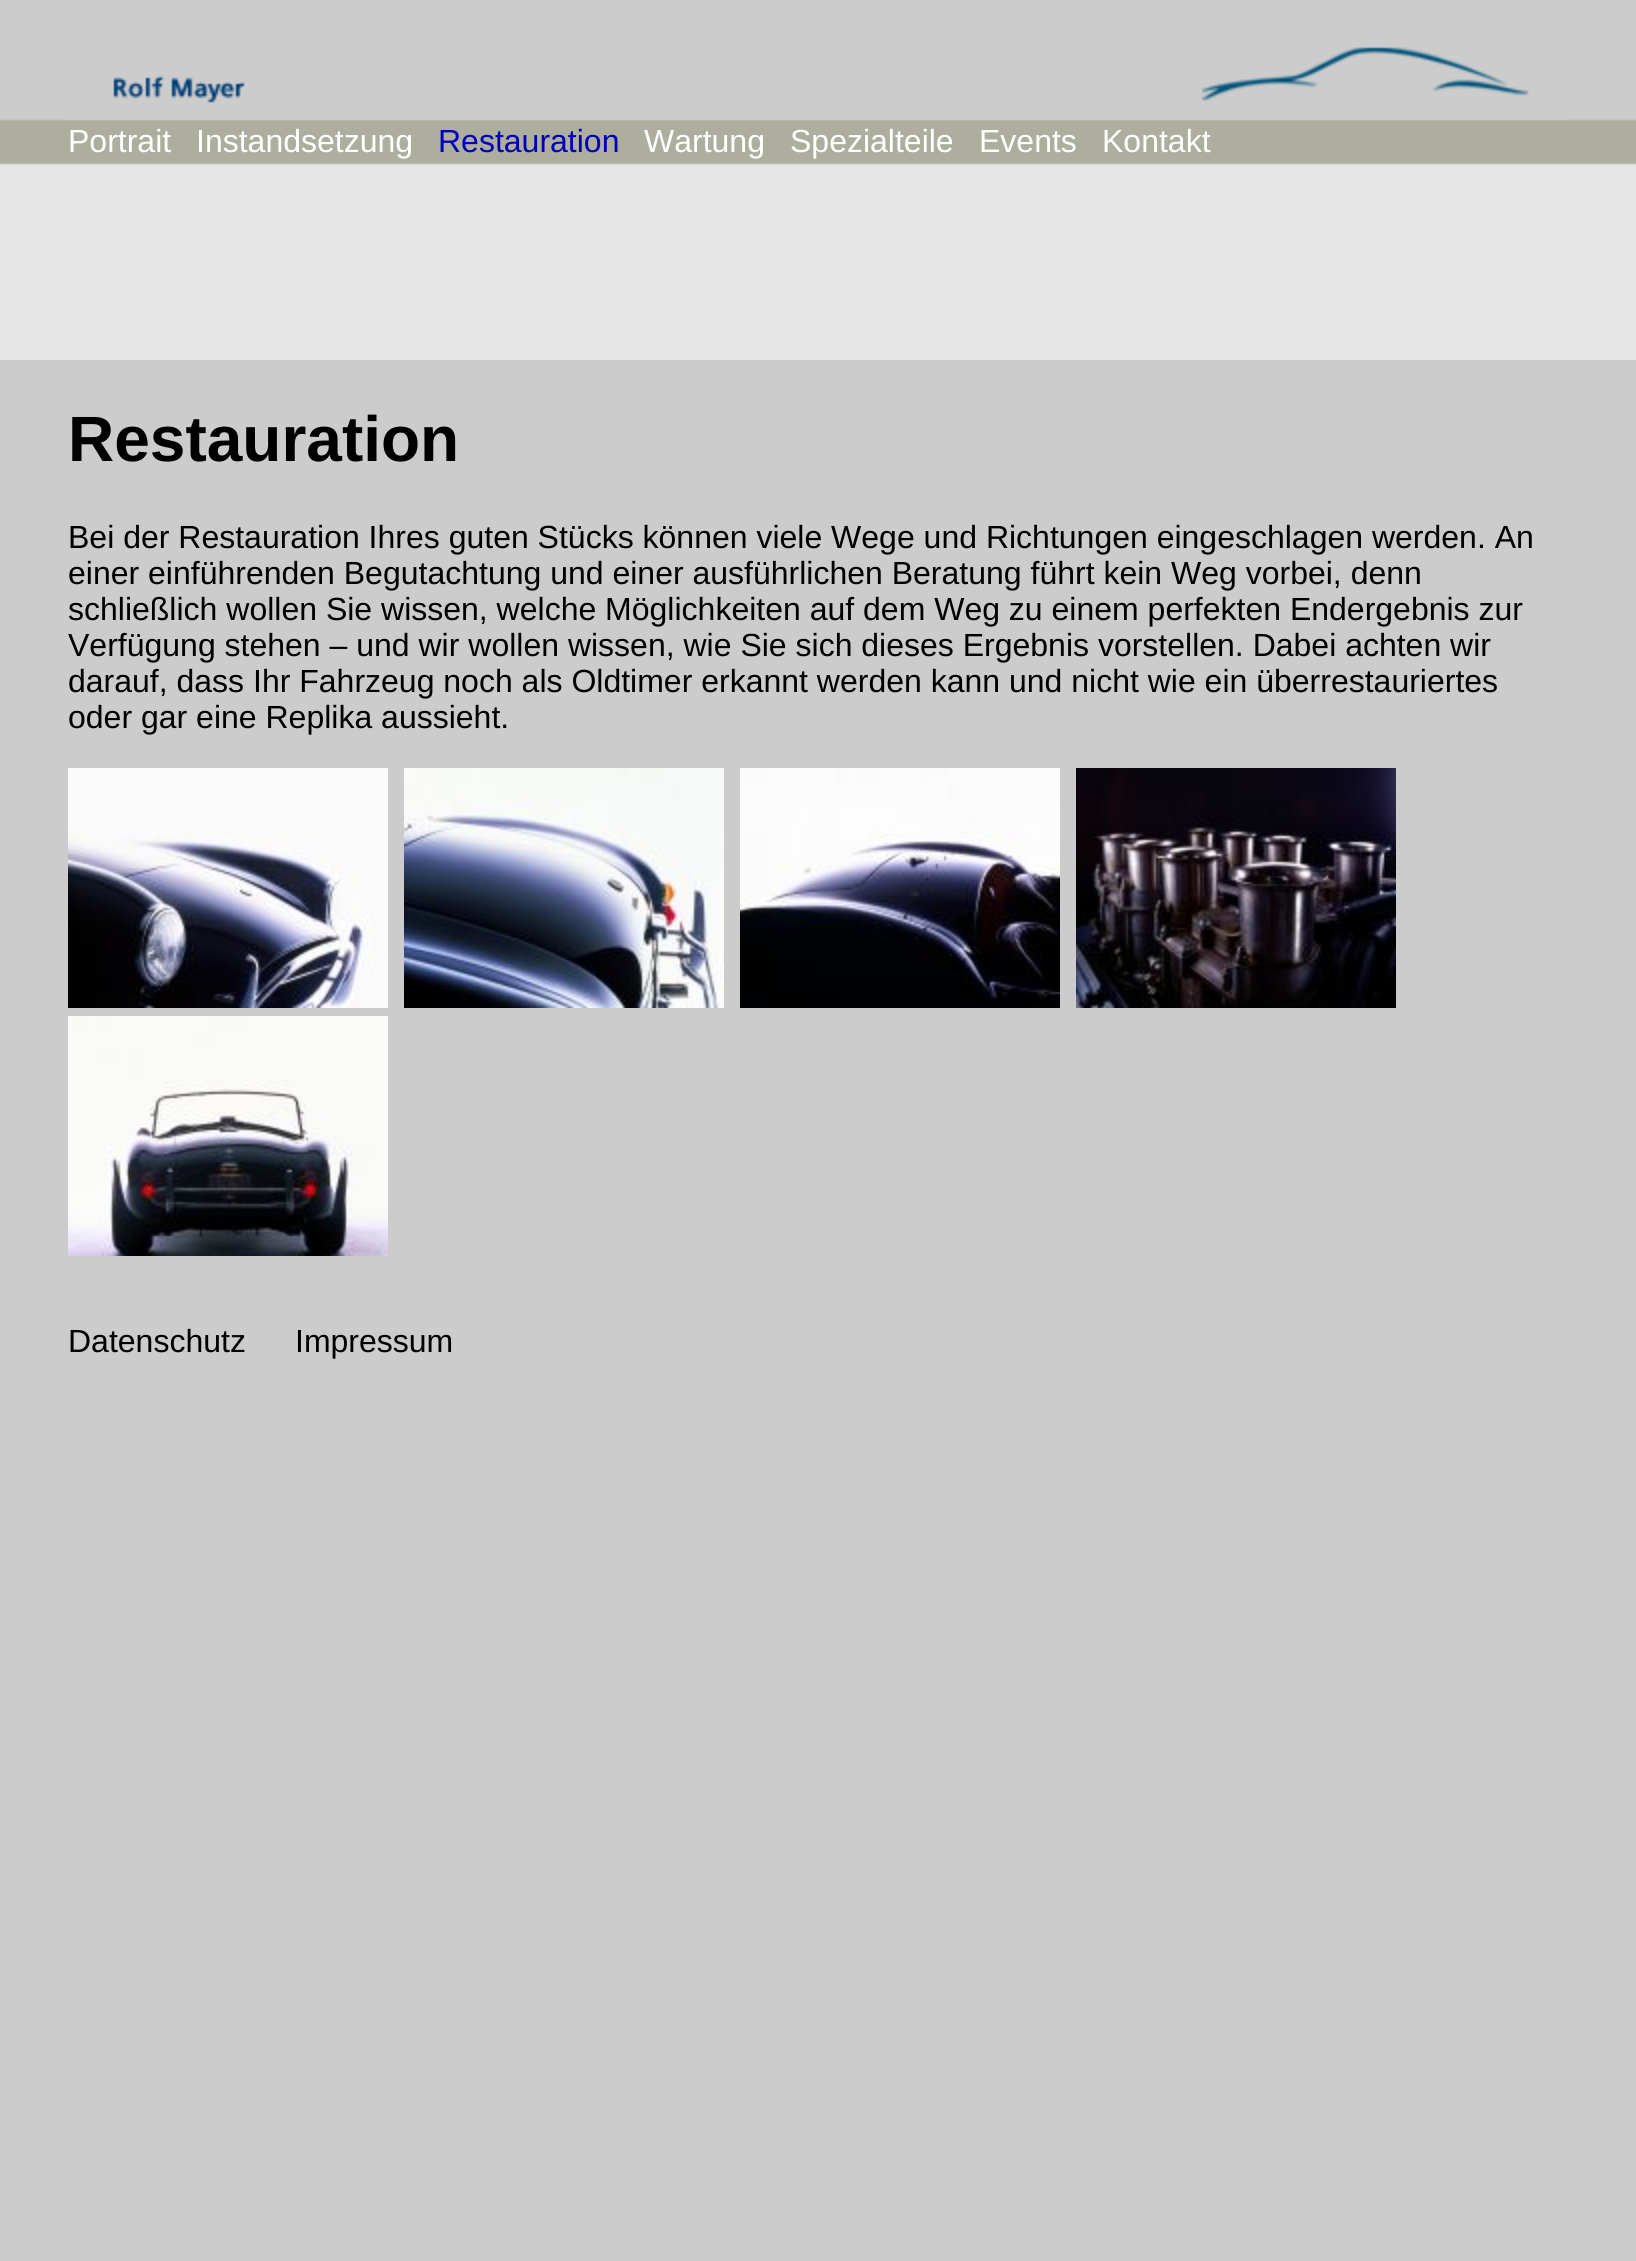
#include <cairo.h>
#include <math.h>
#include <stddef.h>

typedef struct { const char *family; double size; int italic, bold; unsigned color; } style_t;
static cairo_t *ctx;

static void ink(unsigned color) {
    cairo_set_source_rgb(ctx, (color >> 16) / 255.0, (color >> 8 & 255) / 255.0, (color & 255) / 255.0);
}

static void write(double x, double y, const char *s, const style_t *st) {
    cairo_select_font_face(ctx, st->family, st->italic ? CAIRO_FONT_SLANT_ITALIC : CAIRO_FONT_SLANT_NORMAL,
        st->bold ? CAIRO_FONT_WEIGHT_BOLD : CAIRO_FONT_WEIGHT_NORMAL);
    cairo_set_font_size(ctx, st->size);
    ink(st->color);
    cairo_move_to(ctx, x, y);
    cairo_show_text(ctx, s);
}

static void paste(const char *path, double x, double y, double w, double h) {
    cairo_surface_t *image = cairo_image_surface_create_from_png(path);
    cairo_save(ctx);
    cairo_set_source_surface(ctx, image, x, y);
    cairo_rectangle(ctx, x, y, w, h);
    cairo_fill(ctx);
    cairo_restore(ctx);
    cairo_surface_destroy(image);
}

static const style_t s1 = {"Liberation Sans", 32, 0, 0, 0xffffff};
static const style_t s2 = {"Liberation Sans", 32, 0, 0, 0x0000bb};
static const style_t s3 = {"Liberation Sans", 64, 0, 1, 0x000000};
static const style_t s4 = {"Liberation Sans", 32, 0, 0, 0x000000};

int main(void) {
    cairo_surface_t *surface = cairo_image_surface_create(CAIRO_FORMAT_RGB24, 1636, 2261);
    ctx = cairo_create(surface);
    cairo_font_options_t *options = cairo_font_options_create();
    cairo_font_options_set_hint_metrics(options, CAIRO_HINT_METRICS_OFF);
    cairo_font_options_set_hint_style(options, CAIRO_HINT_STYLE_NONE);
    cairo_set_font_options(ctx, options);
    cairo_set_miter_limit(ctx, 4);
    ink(0xcccccc);
    cairo_paint(ctx);
    paste("pic1.png", 0, 119, 1636, 241);
    paste("pic2.png", 68, 47, 1500, 73);
    write(68, 152, "Portrait", &s1);
    write(196, 152, "Instandsetzung", &s1);
    write(438, 152, "Restauration", &s2);
    write(644, 152, "Wartung", &s1);
    write(790, 152, "Spezialteile", &s1);
    write(979, 152, "Events", &s1);
    write(1102, 152, "Kontakt", &s1);
    write(68, 461, "Restauration", &s3);
    write(68, 548, "Bei der Restauration Ihres guten Stücks können viele Wege und Richtungen eingeschlagen werden. An", &s4);
    write(68, 584, "einer einführenden Begutachtung und einer ausführlichen Beratung führt kein Weg vorbei, denn", &s4);
    write(68, 620, "schließlich wollen Sie wissen, welche Möglichkeiten auf dem Weg zu einem perfekten Endergebnis zur", &s4);
    write(68, 656, "Verfügung stehen – und wir wollen wissen, wie Sie sich dieses Ergebnis vorstellen. Dabei achten wir", &s4);
    write(68, 692, "darauf, dass Ihr Fahrzeug noch als Oldtimer erkannt werden kann und nicht wie ein überrestauriertes", &s4);
    write(68, 728, "oder gar eine Replika aussieht.", &s4);
    paste("pic3.png", 68, 768, 320, 240);
    paste("pic4.png", 404, 768, 320, 240);
    paste("pic5.png", 740, 768, 320, 240);
    paste("pic6.png", 1076, 768, 320, 240);
    paste("pic7.png", 68, 1016, 320, 240);
    write(68, 1352, "Datenschutz", &s4);
    write(295, 1352, "Impressum", &s4);
    cairo_surface_write_to_png(surface, "screenshot.png");
    cairo_font_options_destroy(options);
    cairo_destroy(ctx);
    cairo_surface_destroy(surface);
    return 0;
}
